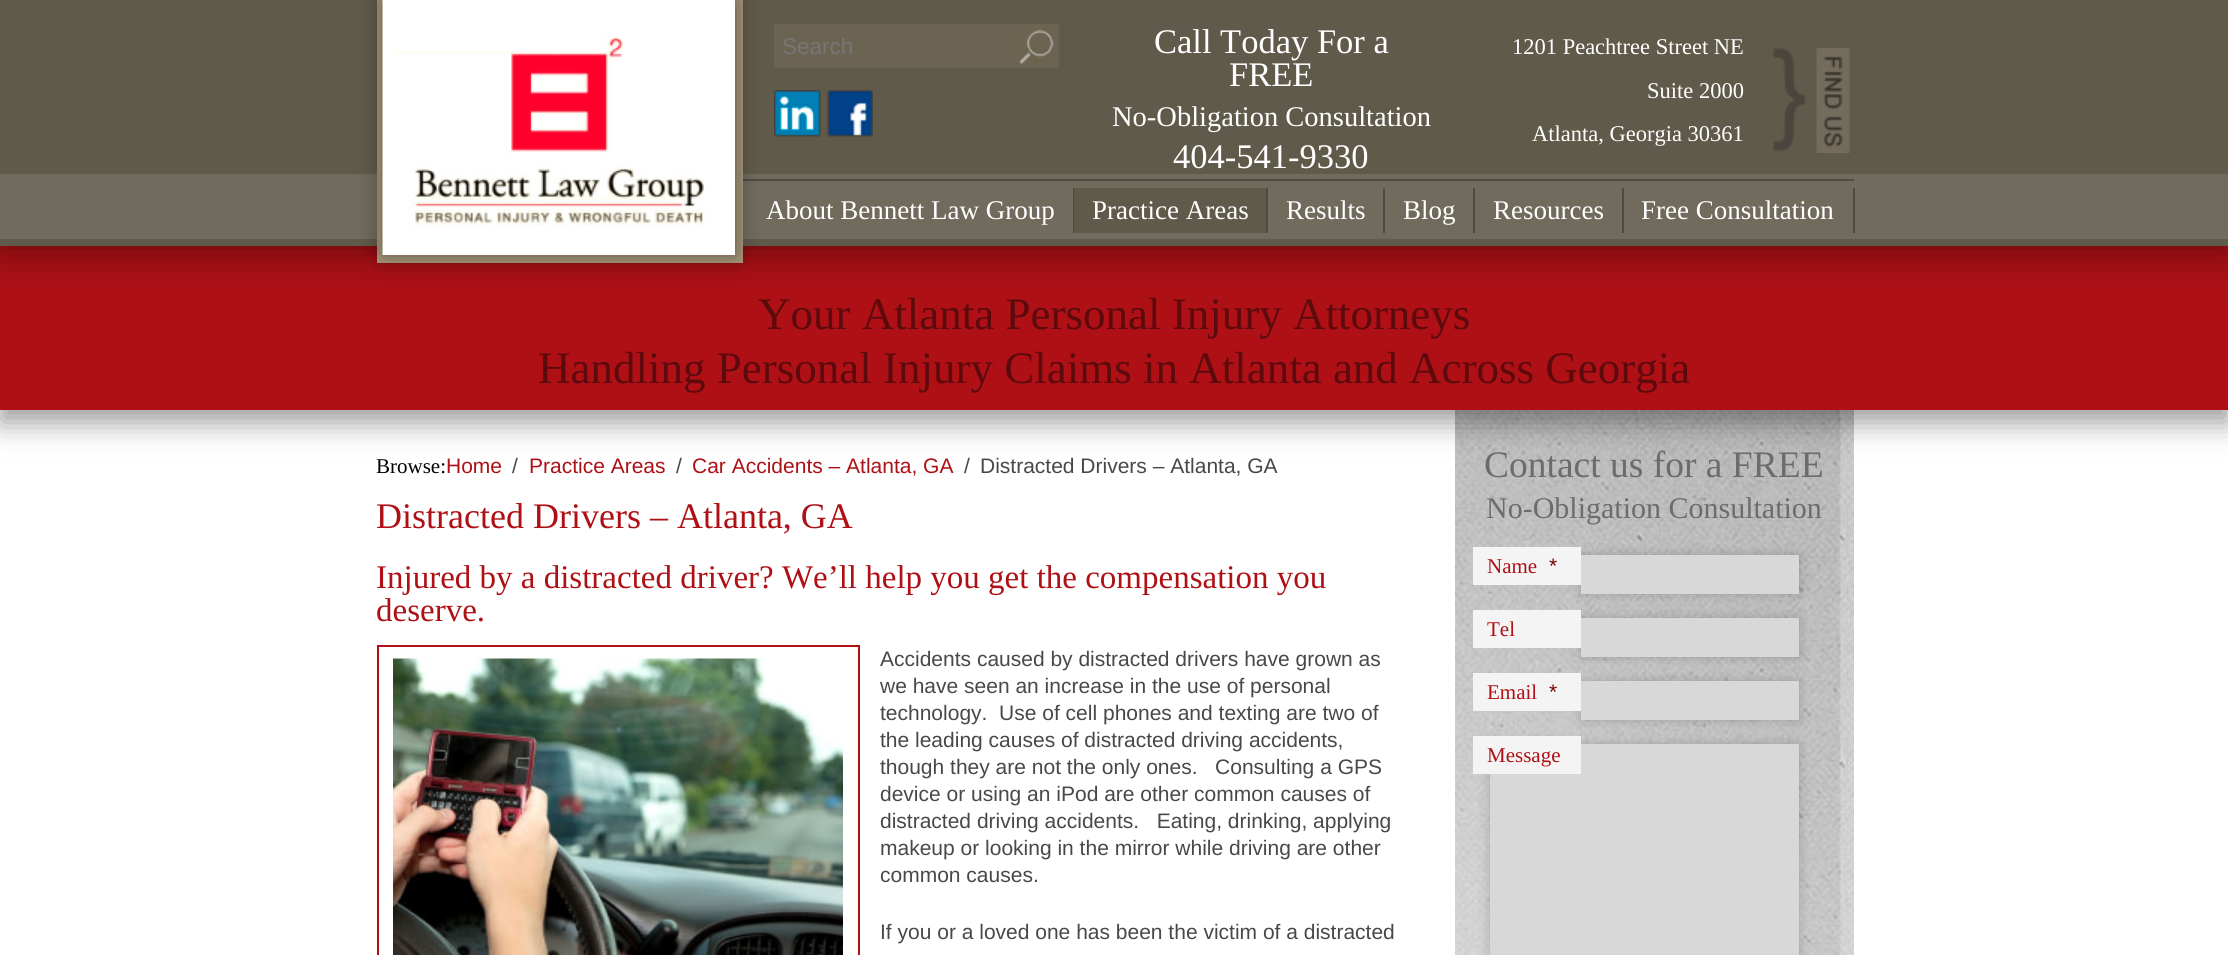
#include <cairo.h>
#include <math.h>
#include <stddef.h>

typedef struct { const char *family; double size; int italic, bold; unsigned color; } style_t;
static cairo_t *ctx;

static void ink(unsigned color) {
    cairo_set_source_rgb(ctx, (color >> 16) / 255.0, (color >> 8 & 255) / 255.0, (color & 255) / 255.0);
}

static void write(double x, double y, const char *s, const style_t *st) {
    cairo_select_font_face(ctx, st->family, st->italic ? CAIRO_FONT_SLANT_ITALIC : CAIRO_FONT_SLANT_NORMAL,
        st->bold ? CAIRO_FONT_WEIGHT_BOLD : CAIRO_FONT_WEIGHT_NORMAL);
    cairo_set_font_size(ctx, st->size);
    ink(st->color);
    cairo_move_to(ctx, x, y);
    cairo_show_text(ctx, s);
}

static void block(double x, double y, double w, double h, unsigned color) {
    ink(color);
    cairo_rectangle(ctx, x, y, w, h);
    cairo_fill(ctx);
}

static void round_path(double x, double y, double w, double h, double r) {
    cairo_new_sub_path(ctx);
    cairo_arc(ctx, x + w - r, y + h - r, r, 0, M_PI / 2);
    cairo_arc(ctx, x + r, y + h - r, r, M_PI / 2, M_PI);
    cairo_arc(ctx, x + r, y + r, r, M_PI, 1.5 * M_PI);
    cairo_arc(ctx, x + w - r, y + r, r, 1.5 * M_PI, 2 * M_PI);
    cairo_close_path(ctx);
}

static void blur_box(double x, double y, double w, double h, double r, double blur, double alpha) {
    cairo_push_group_with_content(ctx, CAIRO_CONTENT_ALPHA);
    cairo_set_operator(ctx, CAIRO_OPERATOR_SOURCE);
    for (int i = 15; i >= -15 && fmin(w, h) + blur * i / 3 > 0; i -= 2) {
        double e = blur * i / 6;
        cairo_set_source_rgba(ctx, 0, 0, 0, alpha * erfc((i - 1) / 8.5) / 2);
        round_path(x - e, y - e, w + 2 * e, h + 2 * e, fmax(0, fmin(r + e + blur * .6, fmin(w, h) / 2 + e)));
        cairo_fill(ctx);
    }
    cairo_pattern_t *soft = cairo_pop_group(ctx);
    cairo_mask(ctx, soft);
    cairo_pattern_destroy(soft);
}

static void paste(const char *path, double x, double y, double w, double h) {
    cairo_surface_t *image = cairo_image_surface_create_from_png(path);
    cairo_save(ctx);
    cairo_set_source_surface(ctx, image, x, y);
    cairo_rectangle(ctx, x, y, w, h);
    cairo_fill(ctx);
    cairo_restore(ctx);
    cairo_surface_destroy(image);
}

static const style_t s1 = {"Liberation Sans", 22.5, 0, 0, 0x757575};
static const style_t s2 = {"Liberation Serif", 34.5, 0, 0, 0xffffff};
static const style_t s3 = {"Liberation Serif", 28.5, 0, 0, 0xffffff};
static const style_t s4 = {"Liberation Serif", 22.5, 0, 0, 0xffffff};
static const style_t s5 = {"Liberation Serif", 27, 0, 0, 0xffffff};
static const style_t s6 = {"Liberation Serif", 45, 0, 0, 0x5d0a0d};
static const style_t s7 = {"Liberation Serif", 21, 0, 0, 0x000000};
static const style_t s8 = {"Liberation Sans", 21, 0, 0, 0xae1015};
static const style_t s9 = {"Liberation Sans", 21, 0, 0, 0x484848};
static const style_t s10 = {"Liberation Serif", 36, 0, 0, 0xae1015};
static const style_t s11 = {"Liberation Serif", 33, 0, 0, 0xae1015};
static const style_t s12 = {"Liberation Serif", 37.5, 0, 0, 0x6f6b6b};
static const style_t s13 = {"Liberation Serif", 30, 0, 0, 0x6f6b6b};
static const style_t s14 = {"Liberation Serif", 21, 0, 0, 0xae1015};
static const style_t s15 = {"Liberation Sans", 21, 0, 0, 0x790000};

int main(void) {
    cairo_surface_t *surface = cairo_image_surface_create(CAIRO_FORMAT_RGB24, 2228, 955);
    ctx = cairo_create(surface);
    cairo_font_options_t *options = cairo_font_options_create();
    cairo_font_options_set_hint_metrics(options, CAIRO_HINT_METRICS_OFF);
    cairo_font_options_set_hint_style(options, CAIRO_HINT_STYLE_NONE);
    cairo_set_font_options(ctx, options);
    cairo_set_miter_limit(ctx, 4);
    ink(0xffffff);
    cairo_paint(ctx);
    paste("pic7.png", 1455, 410, 399, 545);
    ink(0x000000);
    blur_box(0, 258, 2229, 164, 0, 15, 0.4);
    block(0, 246, 2228, 164, 0xae1015);
    ink(0x000000);
    blur_box(0, 0, 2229, 246, 0, 22.5, 0.5);
    block(0, 0, 2228, 246, 0x605a4b);
    block(0, 174, 2228, 65, 0x706b5d);
    block(377, 0, 366, 263, 0xad9b7f);
    block(743, 179, 1111, 2, 0x4e4b41);
    ink(0x000000);
    blur_box(383, 0, 352, 255, 0, 12, 0.5);
    paste("pic1.png", 382, 0, 353, 255);
    block(774, 24, 285, 44, 0x6b6452);
    paste("pic2.png", 1019, 26, 35, 38);
    write(782, 54, "Search", &s1);
    paste("pic3.png", 774, 90, 47, 47);
    paste("pic4.png", 826, 90, 47, 47);
    paste("pic5.png", 1773, 48, 77, 105);
    write(1154, 53, "Call Today For a", &s2);
    write(1229, 86, "FREE", &s2);
    write(1112, 126, "No-Obligation Consultation", &s3);
    write(1173, 168, "404-541-9330", &s2);
    write(1512, 54, "1201 Peachtree Street NE", &s4);
    write(1647, 98, "Suite 2000", &s4);
    write(1532, 141, "Atlanta, Georgia 30361", &s4);
    block(1073, 188, 1, 45, 0x4e4b41);
    write(766, 219, "About Bennett Law Group", &s5);
    block(1074, 188, 192, 45, 0x605a4b);
    block(1266, 188, 2, 45, 0x4e4b41);
    write(1092, 219, "Practice Areas", &s5);
    block(1383, 188, 2, 45, 0x4e4b41);
    write(1286, 219, "Results", &s5);
    block(1473, 188, 2, 45, 0x4e4b41);
    write(1403, 219, "Blog", &s5);
    block(1622, 188, 2, 45, 0x4e4b41);
    write(1493, 219, "Resources", &s5);
    block(1853, 188, 2, 45, 0x4e4b41);
    write(1641, 219, "Free Consultation", &s5);
    write(758, 329, "Your Atlanta Personal Injury Attorneys", &s6);
    write(538, 383, "Handling Personal Injury Claims in Atlanta and Across Georgia", &s6);
    write(376, 473, "Browse:", &s7);
    write(446, 473, "Home", &s8);
    write(512, 473, "/", &s9);
    write(529, 473, "Practice Areas", &s8);
    write(676, 473, "/", &s9);
    write(692, 473, "Car Accidents – Atlanta, GA", &s8);
    write(964, 473, "/", &s9);
    write(980, 473, "Distracted Drivers – Atlanta, GA", &s9);
    write(376, 528, "Distracted Drivers – Atlanta, GA", &s10);
    write(376, 588, "Injured by a distracted driver? We’ll help you get the compensation you", &s11);
    write(376, 621, "deserve.", &s11);
    cairo_rectangle(ctx, 378, 646, 481, 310);
    cairo_stroke(ctx);
    paste("pic6.png", 393, 658, 450, 297);
    write(880, 666, "Accidents caused by distracted drivers have grown as", &s9);
    write(880, 693, "we have seen an increase in the use of personal", &s9);
    write(880, 720, "technology.  Use of cell phones and texting are two of", &s9);
    write(880, 747, "the leading causes of distracted driving accidents,", &s9);
    write(880, 774, "though they are not the only ones.   Consulting a GPS", &s9);
    write(880, 801, "device or using an iPod are other common causes of", &s9);
    write(880, 828, "distracted driving accidents.   Eating, drinking, applying", &s9);
    write(880, 855, "makeup or looking in the mirror while driving are other", &s9);
    write(880, 882, "common causes.", &s9);
    write(880, 939, "If you or a loved one has been the victim of a distracted", &s9);
    write(1484, 477, "Contact us for a FREE", &s12);
    write(1486, 518, "No-Obligation Consultation", &s13);
    ink(0x000000);
    blur_box(1581, 555, 218, 39, 0, 6, 0.2);
    block(1473, 547, 108, 38, 0xf4f4f4);
    write(1487, 573, "Name", &s14);
    write(1549, 573, "*", &s15);
    block(1581, 555, 218, 39, 0xd8d8d8);
    ink(0x000000);
    blur_box(1581, 618, 218, 39, 0, 6, 0.2);
    block(1473, 610, 108, 38, 0xf4f4f4);
    write(1487, 636, "Tel", &s14);
    block(1581, 618, 218, 39, 0xd8d8d8);
    ink(0x000000);
    blur_box(1581, 681, 218, 39, 0, 6, 0.2);
    block(1473, 673, 108, 38, 0xf4f4f4);
    write(1487, 699, "Email", &s14);
    write(1549, 699, "*", &s15);
    block(1581, 681, 218, 39, 0xd8d8d8);
    ink(0x000000);
    blur_box(1490, 744, 309, 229, 0, 6, 0.2);
    block(1490, 744, 309, 211, 0xd8d8d8);
    block(1473, 736, 108, 38, 0xf4f4f4);
    write(1487, 762, "Message", &s14);
    cairo_surface_write_to_png(surface, "screenshot.png");
    cairo_font_options_destroy(options);
    cairo_destroy(ctx);
    cairo_surface_destroy(surface);
    return 0;
}
